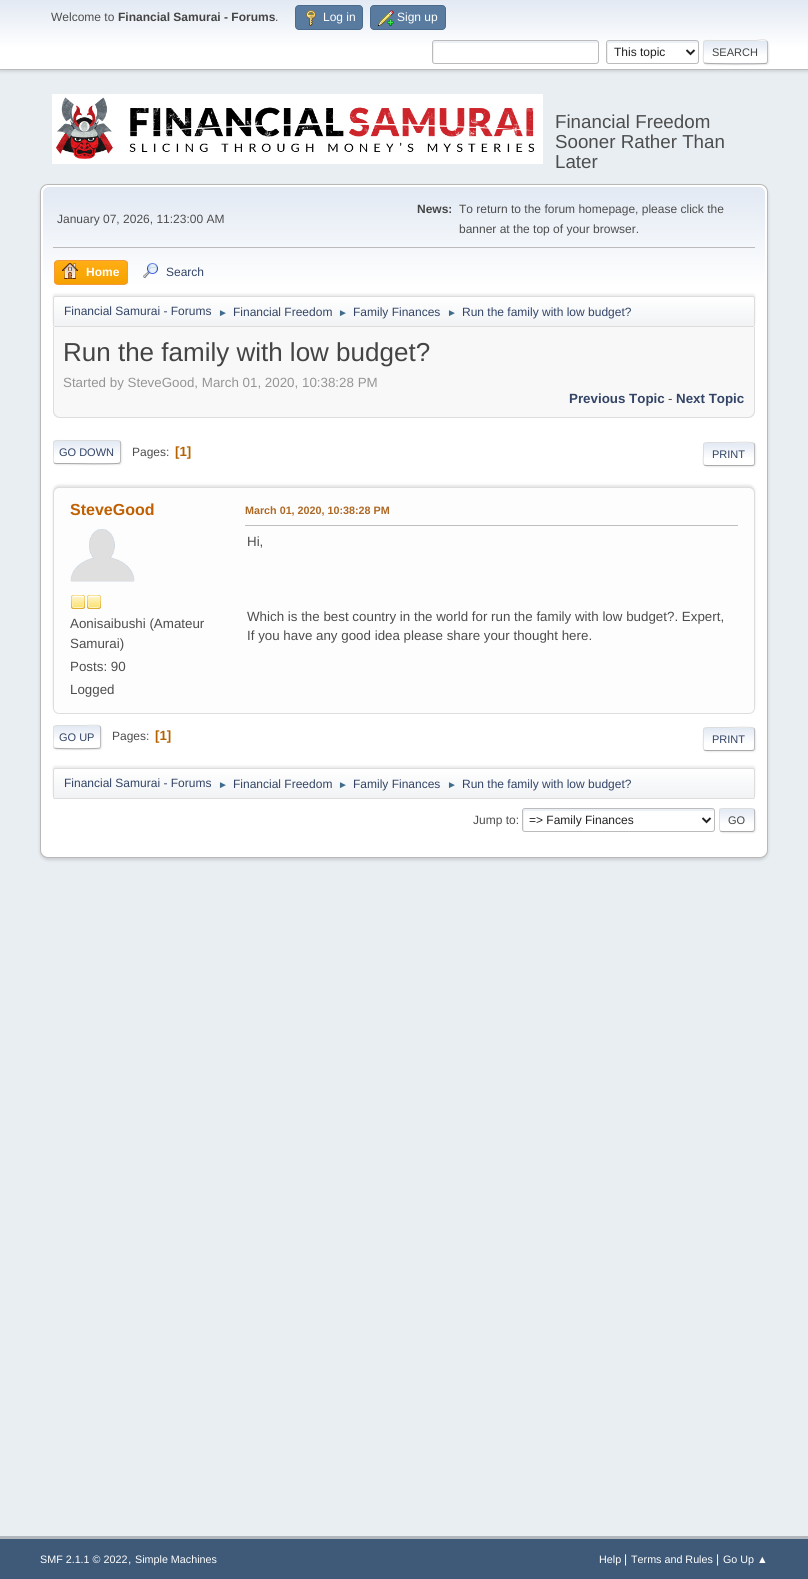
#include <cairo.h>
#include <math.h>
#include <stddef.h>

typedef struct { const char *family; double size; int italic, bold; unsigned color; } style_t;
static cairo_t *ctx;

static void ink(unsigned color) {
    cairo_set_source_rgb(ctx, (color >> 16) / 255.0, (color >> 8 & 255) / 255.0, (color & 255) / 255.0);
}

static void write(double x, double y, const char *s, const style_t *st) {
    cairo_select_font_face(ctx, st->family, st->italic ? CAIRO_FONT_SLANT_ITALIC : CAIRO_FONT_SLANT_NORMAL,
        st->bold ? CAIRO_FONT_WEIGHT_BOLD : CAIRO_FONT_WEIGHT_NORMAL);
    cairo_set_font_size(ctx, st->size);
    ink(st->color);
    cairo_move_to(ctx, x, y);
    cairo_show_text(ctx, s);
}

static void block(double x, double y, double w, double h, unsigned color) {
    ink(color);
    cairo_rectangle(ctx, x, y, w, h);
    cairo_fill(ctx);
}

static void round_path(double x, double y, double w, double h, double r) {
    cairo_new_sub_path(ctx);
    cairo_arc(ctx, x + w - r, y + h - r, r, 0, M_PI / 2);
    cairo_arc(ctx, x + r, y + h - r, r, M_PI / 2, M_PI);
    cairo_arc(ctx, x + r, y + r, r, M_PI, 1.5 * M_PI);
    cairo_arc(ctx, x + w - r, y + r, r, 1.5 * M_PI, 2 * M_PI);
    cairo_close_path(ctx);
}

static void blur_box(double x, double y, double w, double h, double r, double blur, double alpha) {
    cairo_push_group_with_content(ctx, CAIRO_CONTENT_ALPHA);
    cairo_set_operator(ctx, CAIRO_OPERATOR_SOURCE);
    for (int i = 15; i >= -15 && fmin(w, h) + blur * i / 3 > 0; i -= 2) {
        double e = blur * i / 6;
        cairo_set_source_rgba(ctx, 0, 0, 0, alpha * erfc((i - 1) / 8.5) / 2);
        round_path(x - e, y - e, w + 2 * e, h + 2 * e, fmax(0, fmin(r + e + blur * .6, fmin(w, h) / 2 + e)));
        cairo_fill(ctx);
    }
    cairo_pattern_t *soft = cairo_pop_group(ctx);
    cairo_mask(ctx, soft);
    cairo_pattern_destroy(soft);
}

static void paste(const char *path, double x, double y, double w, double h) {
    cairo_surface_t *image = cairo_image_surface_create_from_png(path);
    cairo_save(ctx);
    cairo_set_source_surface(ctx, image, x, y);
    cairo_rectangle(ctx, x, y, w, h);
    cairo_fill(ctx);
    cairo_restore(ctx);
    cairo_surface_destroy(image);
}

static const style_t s1 = {"Liberation Sans", 12, 0, 0, 0x4d4d4d};
static const style_t s2 = {"Liberation Sans", 12, 0, 1, 0x444444};
static const style_t s3 = {"Liberation Sans", 12, 0, 0, 0xffffff};
static const style_t s4 = {"Liberation Sans", 12, 0, 0, 0x222222};
static const style_t s5 = {"Liberation Sans", 11, 0, 0, 0x444444};
static const style_t s6 = {"Liberation Sans", 18.75, 0, 0, 0x4d4d4d};
static const style_t s7 = {"Liberation Sans", 12, 0, 1, 0xffffff};
static const style_t s8 = {"Liberation Sans", 12, 0, 0, 0x334466};
static const style_t s9 = {"Liberation Sans", 10, 0, 0, 0x3f6b8c};
static const style_t s10 = {"Liberation Sans", 26, 0, 0, 0x444444};
static const style_t s11 = {"Liberation Sans", 13.35, 0, 0, 0x959595};
static const style_t s12 = {"Liberation Sans", 13.35, 0, 1, 0x334466};
static const style_t s13 = {"Liberation Sans", 13.35, 0, 0, 0x4d4d4d};
static const style_t s14 = {"Liberation Sans", 11, 0, 0, 0x334466};
static const style_t s15 = {"Liberation Sans", 13.35, 0, 1, 0xb46100};
static const style_t s16 = {"Liberation Sans", 16, 0, 1, 0xc06002};
static const style_t s17 = {"Liberation Sans", 10.75, 0, 1, 0xad6825};
static const style_t s18 = {"Liberation Sans", 10.75, 0, 0, 0xffffff};

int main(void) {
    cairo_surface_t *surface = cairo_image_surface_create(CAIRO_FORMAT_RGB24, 808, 1579);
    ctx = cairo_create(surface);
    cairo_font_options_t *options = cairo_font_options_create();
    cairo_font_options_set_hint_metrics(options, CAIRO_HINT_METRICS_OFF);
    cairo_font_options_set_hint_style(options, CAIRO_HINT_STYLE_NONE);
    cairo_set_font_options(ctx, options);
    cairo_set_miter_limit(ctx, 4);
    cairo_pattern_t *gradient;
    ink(0xe9eef2);
    cairo_paint(ctx);
    ink(0x000000);
    blur_box(0, 1, 808, 70, 0, 2, 0.16);
    gradient = cairo_pattern_create_linear(404, 0, 404, 69);
    cairo_pattern_add_color_stop_rgba(gradient, 0, 0.886, 0.914, 0.953, 1);
    cairo_pattern_add_color_stop_rgba(gradient, 0.7, 1, 1, 1, 1);
    cairo_set_source(ctx, gradient);
    cairo_pattern_destroy(gradient);
    cairo_rectangle(ctx, 0, 0, 808, 69);
    cairo_fill(ctx);
    block(0, 69, 808, 1, 0xbbbbbb);
    write(51, 21, "Welcome to", &s1);
    write(118, 21, "Financial Samurai - Forums", &s2);
    write(275, 21, ".", &s1);
    ink(0x597b9f);
    round_path(295.5, 5.5, 67, 24, 3.5);
    cairo_fill_preserve(ctx);
    ink(0x4a6b8c);
    cairo_set_line_width(ctx, 1);
    cairo_stroke(ctx);
    paste("pic1.png", 306, 10, 10, 16);
    write(323, 21, "Log in", &s3);
    ink(0x597b9f);
    round_path(370.5, 5.5, 75, 24, 3.5);
    cairo_fill_preserve(ctx);
    ink(0x4a6b8c);
    cairo_stroke(ctx);
    paste("pic2.png", 378, 10, 16, 16);
    write(397, 21, "Sign up", &s3);
    round_path(432, 40, 167, 24, 3);
    cairo_fill(ctx);
    ink(0xecf1f8);
    cairo_new_path(ctx);
    cairo_move_to(ctx, 436, 43);
    cairo_line_to(ctx, 598, 43);
    cairo_line_to(ctx, 598, 42);
    cairo_line_to(ctx, 596, 41);
    cairo_line_to(ctx, 435, 41);
    cairo_curve_to(ctx, 434, 41, 433, 42, 433, 43);
    cairo_curve_to(ctx, 433, 46, 432, 62, 434, 63);
    cairo_line_to(ctx, 434, 45);
    cairo_curve_to(ctx, 434, 44, 435, 43, 436, 43);
    cairo_close_path(ctx);
    cairo_fill(ctx);
    round_path(432.5, 40.5, 166, 23, 2.5);
    ink(0xbbbbbb);
    cairo_stroke(ctx);
    ink(0xffffff);
    round_path(606, 40, 93, 24, 3);
    cairo_fill(ctx);
    ink(0xecf1f8);
    cairo_new_path(ctx);
    cairo_move_to(ctx, 610, 43);
    cairo_line_to(ctx, 698, 43);
    cairo_curve_to(ctx, 698, 38, 686, 41, 682, 41);
    cairo_line_to(ctx, 624, 41);
    cairo_curve_to(ctx, 605, 41, 607, 37, 607, 52);
    cairo_curve_to(ctx, 607, 54, 606, 62, 608, 63);
    cairo_line_to(ctx, 608, 45);
    cairo_curve_to(ctx, 608, 44, 609, 43, 610, 43);
    cairo_close_path(ctx);
    cairo_fill(ctx);
    round_path(606.5, 40.5, 92, 23, 2.5);
    ink(0xbbbbbb);
    cairo_stroke(ctx);
    cairo_new_path(ctx);
    cairo_move_to(ctx, 686.5, 50);
    cairo_line_to(ctx, 690.5, 54);
    cairo_line_to(ctx, 694.5, 50);
    ink(0x222222);
    cairo_set_line_width(ctx, 2);
    cairo_stroke(ctx);
    write(614, 56, "This topic", &s4);
    ink(0xdddddd);
    blur_box(704, 41, 65, 24, 3, 0.5, 0.57);
    ink(0xffffff);
    round_path(703, 40, 65, 24, 3);
    cairo_fill(ctx);
    cairo_save(ctx);
    round_path(703, 40, 65, 24, 3);
    cairo_clip(ctx);
    gradient = cairo_pattern_create_linear(736, 41, 736, 63);
    cairo_pattern_add_color_stop_rgba(gradient, 0, 0.886, 0.914, 0.953, 1);
    cairo_pattern_add_color_stop_rgba(gradient, 0.7, 1, 1, 1, 1);
    cairo_set_source(ctx, gradient);
    cairo_pattern_destroy(gradient);
    cairo_rectangle(ctx, 703, 41, 65, 22);
    cairo_fill(ctx);
    gradient = cairo_pattern_create_linear(736, 63, 736, 85);
    cairo_pattern_add_color_stop_rgba(gradient, 0, 0.886, 0.914, 0.953, 1);
    cairo_pattern_add_color_stop_rgba(gradient, 0.7, 1, 1, 1, 1);
    cairo_set_source(ctx, gradient);
    cairo_pattern_destroy(gradient);
    cairo_rectangle(ctx, 703, 63, 65, 1);
    cairo_fill(ctx);
    cairo_restore(ctx);
    cairo_new_path(ctx);
    cairo_move_to(ctx, 767, 41);
    cairo_curve_to(ctx, 767, 41.5, 767.5, 42.5, 767.5, 43);
    cairo_line_to(ctx, 767.5, 61);
    cairo_curve_to(ctx, 767.5, 61.5, 767, 62.5, 767, 63);
    ink(0xbbbbbb);
    cairo_set_line_width(ctx, 1);
    cairo_stroke(ctx);
    cairo_new_path(ctx);
    cairo_move_to(ctx, 767, 63);
    cairo_line_to(ctx, 765, 63.5);
    cairo_curve_to(ctx, 760, 64, 705.5, 64, 704.5, 63);
    cairo_line_to(ctx, 704, 63);
    ink(0xaaaaaa);
    cairo_stroke(ctx);
    cairo_new_path(ctx);
    cairo_move_to(ctx, 704, 63);
    cairo_curve_to(ctx, 702.5, 61, 703.5, 54, 703.5, 52);
    cairo_curve_to(ctx, 703.5, 38.5, 701.5, 40.5, 716, 40.5);
    cairo_line_to(ctx, 755, 40.5);
    cairo_curve_to(ctx, 759, 40.5, 764, 38.5, 767, 41);
    ink(0xdddddd);
    cairo_stroke(ctx);
    write(712, 56, "SEARCH", &s5);
    paste("pic3.png", 52, 94, 491, 70);
    write(555, 128, "Financial Freedom", &s6);
    write(555, 148, "Sooner Rather Than", &s6);
    write(555, 168, "Later", &s6);
    ink(0x000000);
    blur_box(40, 186, 728, 674, 8, 1.5, 0.14);
    ink(0xffffff);
    round_path(40.5, 184.5, 727, 673, 7.5);
    cairo_fill_preserve(ctx);
    ink(0xb8b8b8);
    cairo_stroke(ctx);
    gradient = cairo_pattern_create_linear(404, 187, 404, 329);
    cairo_pattern_add_color_stop_rgba(gradient, 0, 0.886, 0.914, 0.953, 1);
    cairo_pattern_add_color_stop_rgba(gradient, 0.7, 1, 1, 1, 1);
    cairo_set_source(ctx, gradient);
    cairo_pattern_destroy(gradient);
    cairo_new_path(ctx);
    cairo_move_to(ctx, 49, 187);
    cairo_line_to(ctx, 759, 187);
    cairo_curve_to(ctx, 762.5, 187, 765, 189.5, 765, 193);
    cairo_line_to(ctx, 765, 329);
    cairo_line_to(ctx, 43, 329);
    cairo_line_to(ctx, 43, 193);
    cairo_curve_to(ctx, 43, 189.5, 45.5, 187, 49, 187);
    cairo_close_path(ctx);
    cairo_fill(ctx);
    block(53, 247, 702, 1, 0xbbbbbb);
    write(57, 223, "January 07, 2026, 11:23:00 AM", &s1);
    write(417, 213, "News:", &s2);
    write(459, 213, "To return to the forum homepage, please click the", &s1);
    write(459, 233, "banner at the top of your browser.", &s1);
    cairo_save(ctx);
    round_path(54, 260, 74, 25, 4);
    cairo_clip(ctx);
    gradient = cairo_pattern_create_linear(91, 261, 91, 284);
    cairo_pattern_add_color_stop_rgba(gradient, 0, 1, 0.682, 0.078, 1);
    cairo_pattern_add_color_stop_rgba(gradient, 1, 0.961, 0.631, 0, 1);
    cairo_set_source(ctx, gradient);
    cairo_pattern_destroy(gradient);
    cairo_rectangle(ctx, 54, 261, 74, 23);
    cairo_fill(ctx);
    cairo_restore(ctx);
    round_path(54.5, 260.5, 73, 24, 3.5);
    ink(0xf49a3a);
    cairo_stroke(ctx);
    paste("pic4.png", 62, 263, 16, 16);
    write(86, 276, "Home", &s7);
    paste("pic5.png", 143, 263, 15, 15);
    write(166, 276, "Search", &s8);
    ink(0x000000);
    blur_box(53, 294, 702, 31, 2, 1, 0.08);
    cairo_save(ctx);
    round_path(53, 296, 702, 31, 2);
    cairo_clip(ctx);
    gradient = cairo_pattern_create_linear(404, 297, 404, 326);
    cairo_pattern_add_color_stop_rgba(gradient, 0, 1, 1, 1, 1);
    cairo_pattern_add_color_stop_rgba(gradient, 0.95, 0.945, 0.953, 0.961, 1);
    cairo_set_source(ctx, gradient);
    cairo_pattern_destroy(gradient);
    cairo_rectangle(ctx, 53, 297, 702, 29);
    cairo_fill(ctx);
    cairo_restore(ctx);
    round_path(53.5, 296.5, 701, 30, 1.5);
    ink(0xdddddd);
    cairo_stroke(ctx);
    write(64, 315, "Financial Samurai - Forums", &s8);
    write(218, 316, "►", &s9);
    write(233, 316, "Financial Freedom", &s8);
    write(338, 316, "►", &s9);
    write(353, 316, "Family Finances", &s8);
    write(447, 316, "►", &s9);
    write(462, 316, "Run the family with low budget?", &s8);
    ink(0xf8f8f8);
    cairo_new_path(ctx);
    cairo_move_to(ctx, 53, 327);
    cairo_line_to(ctx, 755, 327);
    cairo_line_to(ctx, 755, 411);
    cairo_curve_to(ctx, 755, 415, 752, 418, 748, 418);
    cairo_line_to(ctx, 60, 418);
    cairo_curve_to(ctx, 56, 418, 53, 415, 53, 411);
    cairo_close_path(ctx);
    cairo_fill(ctx);
    ink(0xdddddd);
    cairo_set_fill_rule(ctx, CAIRO_FILL_RULE_EVEN_ODD);
    cairo_new_path(ctx);
    cairo_move_to(ctx, 53, 327);
    cairo_line_to(ctx, 755, 327);
    cairo_line_to(ctx, 755, 411);
    cairo_curve_to(ctx, 755, 415, 752, 418, 748, 418);
    cairo_line_to(ctx, 60, 418);
    cairo_curve_to(ctx, 56, 418, 53, 415, 53, 411);
    cairo_close_path(ctx);
    cairo_move_to(ctx, 54, 327);
    cairo_line_to(ctx, 754, 327);
    cairo_line_to(ctx, 754, 411);
    cairo_curve_to(ctx, 754, 414, 751, 417, 748, 417);
    cairo_line_to(ctx, 60, 417);
    cairo_curve_to(ctx, 57, 417, 54, 414, 54, 411);
    cairo_close_path(ctx);
    cairo_fill(ctx);
    write(63, 361, "Run the family with low budget?", &s10);
    write(63, 387, "Started by SteveGood, March 01, 2020, 10:38:28 PM", &s11);
    write(569, 403, "Previous Topic", &s12);
    write(668, 403, "-", &s13);
    write(676, 403, "Next Topic", &s12);
    ink(0xdddddd);
    blur_box(54, 441, 68, 24, 3, 0.5, 0.57);
    cairo_save(ctx);
    cairo_set_fill_rule(ctx, CAIRO_FILL_RULE_WINDING);
    round_path(53, 440, 68, 24, 3);
    cairo_clip(ctx);
    gradient = cairo_pattern_create_linear(87, 441, 87, 463);
    cairo_pattern_add_color_stop_rgba(gradient, 0, 0.886, 0.914, 0.953, 1);
    cairo_pattern_add_color_stop_rgba(gradient, 0.7, 1, 1, 1, 1);
    cairo_set_source(ctx, gradient);
    cairo_pattern_destroy(gradient);
    cairo_rectangle(ctx, 53, 441, 68, 22);
    cairo_fill(ctx);
    gradient = cairo_pattern_create_linear(87, 463, 87, 485);
    cairo_pattern_add_color_stop_rgba(gradient, 0, 0.886, 0.914, 0.953, 1);
    cairo_pattern_add_color_stop_rgba(gradient, 0.7, 1, 1, 1, 1);
    cairo_set_source(ctx, gradient);
    cairo_pattern_destroy(gradient);
    cairo_rectangle(ctx, 53, 463, 68, 1);
    cairo_fill(ctx);
    cairo_restore(ctx);
    cairo_new_path(ctx);
    cairo_move_to(ctx, 120, 441);
    cairo_curve_to(ctx, 120, 441.5, 120.5, 442.5, 120.5, 443);
    cairo_line_to(ctx, 120.5, 461);
    cairo_curve_to(ctx, 120.5, 461.5, 120, 462.5, 120, 463);
    ink(0xbbbbbb);
    cairo_stroke(ctx);
    cairo_new_path(ctx);
    cairo_move_to(ctx, 120, 463);
    cairo_line_to(ctx, 119.5, 463);
    cairo_curve_to(ctx, 117.5, 464.5, 72.5, 463.5, 66.5, 463.5);
    cairo_line_to(ctx, 56, 463.5);
    cairo_line_to(ctx, 54, 463);
    ink(0xaaaaaa);
    cairo_stroke(ctx);
    cairo_save(ctx);
    cairo_set_fill_rule(ctx, CAIRO_FILL_RULE_WINDING);
    cairo_rectangle(ctx, 53, 433, 702, 42);
    cairo_clip(ctx);
    cairo_new_path(ctx);
    cairo_move_to(ctx, 54, 463);
    cairo_curve_to(ctx, 52.5, 461, 53.5, 457, 53.5, 455);
    cairo_curve_to(ctx, 53.5, 438.5, 50, 440.5, 66.5, 440.5);
    cairo_line_to(ctx, 118, 440.5);
    cairo_line_to(ctx, 120, 441);
    ink(0xdddddd);
    cairo_stroke(ctx);
    cairo_restore(ctx);
    write(59, 456, "GO DOWN", &s14);
    write(132, 456, "Pages:", &s1);
    write(175, 456, "[1]", &s15);
    cairo_save(ctx);
    cairo_new_path(ctx);
    cairo_move_to(ctx, 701, 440);
    cairo_line_to(ctx, 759, 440);
    cairo_line_to(ctx, 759, 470);
    cairo_line_to(ctx, 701, 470);
    cairo_close_path(ctx);
    cairo_move_to(ctx, 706, 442);
    cairo_line_to(ctx, 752, 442);
    cairo_curve_to(ctx, 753.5, 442, 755, 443.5, 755, 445);
    cairo_line_to(ctx, 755, 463);
    cairo_curve_to(ctx, 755, 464.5, 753.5, 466, 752, 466);
    cairo_line_to(ctx, 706, 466);
    cairo_curve_to(ctx, 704.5, 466, 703, 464.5, 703, 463);
    cairo_line_to(ctx, 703, 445);
    cairo_curve_to(ctx, 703, 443.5, 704.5, 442, 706, 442);
    cairo_close_path(ctx);
    cairo_clip(ctx);
    ink(0xdddddd);
    blur_box(704, 443, 52, 24, 3, 0.5, 0.57);
    cairo_restore(ctx);
    ink(0xffffff);
    round_path(703, 442, 52, 24, 3);
    cairo_fill(ctx);
    cairo_save(ctx);
    cairo_set_fill_rule(ctx, CAIRO_FILL_RULE_WINDING);
    round_path(703, 442, 52, 24, 3);
    cairo_clip(ctx);
    gradient = cairo_pattern_create_linear(729, 443, 729, 465);
    cairo_pattern_add_color_stop_rgba(gradient, 0, 0.886, 0.914, 0.953, 1);
    cairo_pattern_add_color_stop_rgba(gradient, 0.7, 1, 1, 1, 1);
    cairo_set_source(ctx, gradient);
    cairo_pattern_destroy(gradient);
    cairo_rectangle(ctx, 703, 443, 52, 22);
    cairo_fill(ctx);
    cairo_restore(ctx);
    cairo_new_path(ctx);
    cairo_move_to(ctx, 754, 443);
    cairo_curve_to(ctx, 754, 443.5, 754.5, 444.5, 754.5, 445);
    cairo_line_to(ctx, 754.5, 463);
    cairo_curve_to(ctx, 754.5, 463.5, 754, 464.5, 754, 465);
    ink(0xbbbbbb);
    cairo_stroke(ctx);
    cairo_new_path(ctx);
    cairo_move_to(ctx, 754, 465);
    cairo_line_to(ctx, 752, 465.5);
    cairo_line_to(ctx, 706, 465.5);
    cairo_line_to(ctx, 704, 465);
    ink(0xaaaaaa);
    cairo_stroke(ctx);
    cairo_new_path(ctx);
    cairo_move_to(ctx, 704, 465);
    cairo_curve_to(ctx, 702.5, 463, 703.5, 456, 703.5, 454);
    cairo_curve_to(ctx, 703.5, 441.5, 701.5, 442.5, 713.5, 442.5);
    cairo_line_to(ctx, 729, 442.5);
    cairo_curve_to(ctx, 732.5, 442.5, 751.5, 441.5, 753.5, 443);
    cairo_line_to(ctx, 754, 443);
    ink(0xdddddd);
    cairo_stroke(ctx);
    write(712, 458, "PRINT", &s14);
    ink(0x000000);
    blur_box(53, 485, 702, 227, 6, 1, 0.1);
    ink(0xfdfdfd);
    round_path(53.5, 487.5, 701, 226, 5.5);
    cairo_fill_preserve(ctx);
    ink(0xdddddd);
    cairo_stroke(ctx);
    write(70, 515, "SteveGood", &s16);
    paste("pic6.png", 70, 529, 65, 53);
    paste("pic7.png", 71, 595, 14, 14);
    paste("pic7.png", 87, 595, 14, 14);
    write(70, 628, "Aonisaibushi (Amateur", &s13);
    write(70, 648, "Samurai)", &s13);
    write(70, 671, "Posts: 90", &s13);
    write(70, 694, "Logged", &s13);
    write(245, 514, "March 01, 2020, 10:38:28 PM", &s17);
    block(245, 525, 493, 1, 0xbfbfbf);
    write(247, 546, "Hi,", &s13);
    write(247, 621, "Which is the best country in the world for run the family with low budget?. Expert,", &s13);
    write(247, 640, "If you have any good idea please share your thought here.", &s13);
    ink(0xdddddd);
    blur_box(54, 726, 48, 24, 3, 0.5, 0.57);
    ink(0xffffff);
    round_path(53, 725, 48, 24, 3);
    cairo_fill(ctx);
    cairo_save(ctx);
    cairo_set_fill_rule(ctx, CAIRO_FILL_RULE_WINDING);
    round_path(53, 725, 48, 24, 3);
    cairo_clip(ctx);
    gradient = cairo_pattern_create_linear(77, 726, 77, 748);
    cairo_pattern_add_color_stop_rgba(gradient, 0, 0.886, 0.914, 0.953, 1);
    cairo_pattern_add_color_stop_rgba(gradient, 0.7, 1, 1, 1, 1);
    cairo_set_source(ctx, gradient);
    cairo_pattern_destroy(gradient);
    cairo_rectangle(ctx, 53, 726, 48, 22);
    cairo_fill(ctx);
    cairo_restore(ctx);
    cairo_new_path(ctx);
    cairo_move_to(ctx, 100, 726);
    cairo_curve_to(ctx, 100, 726.5, 100.5, 727.5, 100.5, 728);
    cairo_line_to(ctx, 100.5, 746);
    cairo_curve_to(ctx, 100.5, 746.5, 100, 747.5, 100, 748);
    ink(0xbbbbbb);
    cairo_stroke(ctx);
    cairo_new_path(ctx);
    cairo_move_to(ctx, 100, 748);
    cairo_curve_to(ctx, 98.5, 749, 55.5, 749, 54, 748);
    ink(0xaaaaaa);
    cairo_stroke(ctx);
    cairo_save(ctx);
    cairo_set_fill_rule(ctx, CAIRO_FILL_RULE_WINDING);
    cairo_rectangle(ctx, 53, 718, 702, 42);
    cairo_clip(ctx);
    cairo_new_path(ctx);
    cairo_move_to(ctx, 54, 748);
    cairo_curve_to(ctx, 52.5, 746, 53.5, 739, 53.5, 737);
    cairo_curve_to(ctx, 53.5, 725, 51, 725.5, 63, 725.5);
    cairo_line_to(ctx, 84, 725.5);
    cairo_curve_to(ctx, 86.5, 725.5, 98, 724.5, 100, 726);
    ink(0xdddddd);
    cairo_stroke(ctx);
    cairo_restore(ctx);
    write(59, 741, "GO UP", &s14);
    write(112, 740, "Pages:", &s1);
    write(155, 740, "[1]", &s15);
    cairo_save(ctx);
    cairo_new_path(ctx);
    cairo_move_to(ctx, 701, 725);
    cairo_line_to(ctx, 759, 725);
    cairo_line_to(ctx, 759, 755);
    cairo_line_to(ctx, 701, 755);
    cairo_close_path(ctx);
    cairo_move_to(ctx, 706, 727);
    cairo_line_to(ctx, 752, 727);
    cairo_curve_to(ctx, 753.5, 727, 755, 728.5, 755, 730);
    cairo_line_to(ctx, 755, 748);
    cairo_curve_to(ctx, 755, 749.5, 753.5, 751, 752, 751);
    cairo_line_to(ctx, 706, 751);
    cairo_curve_to(ctx, 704.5, 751, 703, 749.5, 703, 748);
    cairo_line_to(ctx, 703, 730);
    cairo_curve_to(ctx, 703, 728.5, 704.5, 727, 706, 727);
    cairo_close_path(ctx);
    cairo_clip(ctx);
    ink(0xdddddd);
    blur_box(704, 728, 52, 24, 3, 0.5, 0.57);
    cairo_restore(ctx);
    ink(0xffffff);
    round_path(703, 727, 52, 24, 3);
    cairo_fill(ctx);
    cairo_save(ctx);
    cairo_set_fill_rule(ctx, CAIRO_FILL_RULE_WINDING);
    round_path(703, 727, 52, 24, 3);
    cairo_clip(ctx);
    gradient = cairo_pattern_create_linear(729, 728, 729, 750);
    cairo_pattern_add_color_stop_rgba(gradient, 0, 0.886, 0.914, 0.953, 1);
    cairo_pattern_add_color_stop_rgba(gradient, 0.7, 1, 1, 1, 1);
    cairo_set_source(ctx, gradient);
    cairo_pattern_destroy(gradient);
    cairo_rectangle(ctx, 703, 728, 52, 22);
    cairo_fill(ctx);
    cairo_restore(ctx);
    cairo_new_path(ctx);
    cairo_move_to(ctx, 754, 728);
    cairo_curve_to(ctx, 754, 728.5, 754.5, 729.5, 754.5, 730);
    cairo_line_to(ctx, 754.5, 748);
    cairo_curve_to(ctx, 754.5, 748.5, 754, 749.5, 754, 750);
    ink(0xbbbbbb);
    cairo_stroke(ctx);
    cairo_new_path(ctx);
    cairo_move_to(ctx, 754, 750);
    cairo_line_to(ctx, 752, 750.5);
    cairo_line_to(ctx, 706, 750.5);
    cairo_line_to(ctx, 704, 750);
    ink(0xaaaaaa);
    cairo_stroke(ctx);
    cairo_new_path(ctx);
    cairo_move_to(ctx, 704, 750);
    cairo_curve_to(ctx, 702.5, 748, 703.5, 741, 703.5, 739);
    cairo_curve_to(ctx, 703.5, 726.5, 701.5, 727.5, 713.5, 727.5);
    cairo_line_to(ctx, 729, 727.5);
    cairo_curve_to(ctx, 732.5, 727.5, 751.5, 726.5, 753.5, 728);
    cairo_line_to(ctx, 754, 728);
    ink(0xdddddd);
    cairo_stroke(ctx);
    write(712, 743, "PRINT", &s14);
    ink(0x000000);
    blur_box(53, 766, 702, 31, 2, 1, 0.08);
    cairo_save(ctx);
    cairo_set_fill_rule(ctx, CAIRO_FILL_RULE_WINDING);
    round_path(53, 768, 702, 31, 2);
    cairo_clip(ctx);
    gradient = cairo_pattern_create_linear(404, 769, 404, 798);
    cairo_pattern_add_color_stop_rgba(gradient, 0, 1, 1, 1, 1);
    cairo_pattern_add_color_stop_rgba(gradient, 0.95, 0.945, 0.953, 0.961, 1);
    cairo_set_source(ctx, gradient);
    cairo_pattern_destroy(gradient);
    cairo_rectangle(ctx, 53, 769, 702, 29);
    cairo_fill(ctx);
    cairo_restore(ctx);
    round_path(53.5, 768.5, 701, 30, 1.5);
    ink(0xdddddd);
    cairo_stroke(ctx);
    write(64, 787, "Financial Samurai - Forums", &s8);
    write(218, 788, "►", &s9);
    write(233, 788, "Financial Freedom", &s8);
    write(338, 788, "►", &s9);
    write(353, 788, "Family Finances", &s8);
    write(447, 788, "►", &s9);
    write(462, 788, "Run the family with low budget?", &s8);
    write(473, 824, "Jump to:", &s1);
    ink(0xecf1f8);
    cairo_set_fill_rule(ctx, CAIRO_FILL_RULE_WINDING);
    cairo_new_path(ctx);
    cairo_move_to(ctx, 526, 811);
    cairo_line_to(ctx, 714, 811);
    cairo_curve_to(ctx, 714, 810, 713, 809, 712, 809);
    cairo_line_to(ctx, 525, 809);
    cairo_curve_to(ctx, 524, 809, 523, 810, 523, 811);
    cairo_line_to(ctx, 523, 829);
    cairo_curve_to(ctx, 523, 830, 523, 830, 524, 831);
    cairo_line_to(ctx, 524, 813);
    cairo_curve_to(ctx, 524, 812, 525, 811, 526, 811);
    cairo_close_path(ctx);
    cairo_fill(ctx);
    round_path(522.5, 808.5, 192, 23, 2.5);
    ink(0xbbbbbb);
    cairo_stroke(ctx);
    cairo_new_path(ctx);
    cairo_move_to(ctx, 702.5, 818);
    cairo_line_to(ctx, 706.5, 822);
    cairo_line_to(ctx, 710.5, 818);
    ink(0x222222);
    cairo_set_line_width(ctx, 2);
    cairo_stroke(ctx);
    write(529, 824, "=> Family Finances", &s4);
    ink(0xdddddd);
    blur_box(720, 809, 36, 24, 3, 0.5, 0.57);
    cairo_save(ctx);
    round_path(719, 808, 36, 24, 3);
    cairo_clip(ctx);
    gradient = cairo_pattern_create_linear(737, 809, 737, 831);
    cairo_pattern_add_color_stop_rgba(gradient, 0, 0.886, 0.914, 0.953, 1);
    cairo_pattern_add_color_stop_rgba(gradient, 0.7, 1, 1, 1, 1);
    cairo_set_source(ctx, gradient);
    cairo_pattern_destroy(gradient);
    cairo_rectangle(ctx, 719, 809, 36, 22);
    cairo_fill(ctx);
    cairo_restore(ctx);
    cairo_new_path(ctx);
    cairo_move_to(ctx, 754, 809);
    cairo_curve_to(ctx, 754, 809.5, 754.5, 810.5, 754.5, 811);
    cairo_line_to(ctx, 754.5, 829);
    cairo_curve_to(ctx, 754.5, 829.5, 754, 830.5, 754, 831);
    ink(0xbbbbbb);
    cairo_set_line_width(ctx, 1);
    cairo_stroke(ctx);
    cairo_new_path(ctx);
    cairo_move_to(ctx, 754, 831);
    cairo_curve_to(ctx, 753.5, 831, 752.5, 831.5, 752, 831.5);
    cairo_line_to(ctx, 722, 831.5);
    cairo_curve_to(ctx, 721.5, 831.5, 720.5, 831, 720, 831);
    ink(0xaaaaaa);
    cairo_stroke(ctx);
    cairo_new_path(ctx);
    cairo_move_to(ctx, 720, 831);
    cairo_curve_to(ctx, 720, 830.5, 719.5, 829.5, 719.5, 829);
    cairo_line_to(ctx, 719.5, 811);
    cairo_curve_to(ctx, 719.5, 810.5, 720, 809.5, 720, 809);
    cairo_curve_to(ctx, 720.5, 809, 721.5, 808.5, 722, 808.5);
    cairo_line_to(ctx, 752, 808.5);
    cairo_curve_to(ctx, 752.5, 808.5, 753.5, 809, 754, 809);
    ink(0xdddddd);
    cairo_stroke(ctx);
    write(728, 824, "GO", &s5);
    block(0, 1539, 808, 40, 0x3e5a78);
    block(0, 1536, 808, 3, 0xb2b6bd);
    write(40, 1563, "SMF 2.1.1 © 2022", &s18);
    write(128, 1563, ",", &s3);
    write(135, 1563, "Simple Machines", &s18);
    write(599, 1563, "Help", &s18);
    write(624, 1563, "|", &s3);
    write(631, 1563, "Terms and Rules", &s18);
    write(716, 1563, "|", &s3);
    write(723, 1563, "Go Up ▲", &s18);
    cairo_surface_write_to_png(surface, "screenshot.png");
    cairo_font_options_destroy(options);
    cairo_destroy(ctx);
    cairo_surface_destroy(surface);
    return 0;
}
